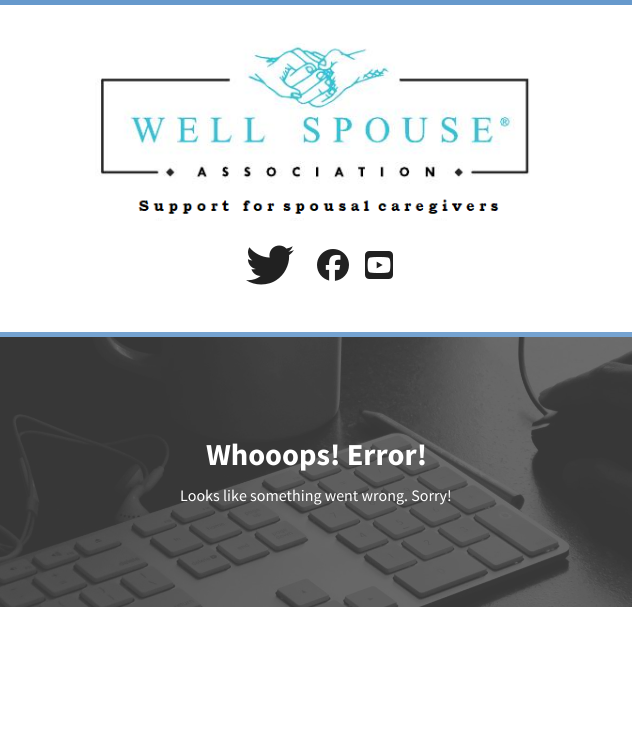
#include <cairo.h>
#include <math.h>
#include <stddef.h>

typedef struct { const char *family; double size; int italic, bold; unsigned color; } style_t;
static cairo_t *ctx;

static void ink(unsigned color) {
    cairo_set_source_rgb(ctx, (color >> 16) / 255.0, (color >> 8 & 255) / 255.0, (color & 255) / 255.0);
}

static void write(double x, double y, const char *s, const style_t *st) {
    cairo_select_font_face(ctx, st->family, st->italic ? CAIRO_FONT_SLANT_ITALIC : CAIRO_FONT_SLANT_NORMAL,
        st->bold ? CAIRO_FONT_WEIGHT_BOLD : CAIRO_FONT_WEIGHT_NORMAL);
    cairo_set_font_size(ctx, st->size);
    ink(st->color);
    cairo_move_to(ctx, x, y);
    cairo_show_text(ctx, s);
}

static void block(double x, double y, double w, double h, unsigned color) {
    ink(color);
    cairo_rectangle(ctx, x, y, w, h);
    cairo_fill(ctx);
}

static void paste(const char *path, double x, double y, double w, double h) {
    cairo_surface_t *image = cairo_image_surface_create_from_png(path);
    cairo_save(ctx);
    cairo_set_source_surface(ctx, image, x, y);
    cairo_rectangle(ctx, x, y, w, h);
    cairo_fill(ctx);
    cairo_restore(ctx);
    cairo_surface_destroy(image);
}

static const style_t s1 = {"Source Sans Pro", 30.5, 0, 1, 0xffffff};
static const style_t s2 = {"Source Sans Pro", 16, 0, 0, 0xffffff};

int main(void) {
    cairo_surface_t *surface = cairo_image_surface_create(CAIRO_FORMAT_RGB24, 632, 741);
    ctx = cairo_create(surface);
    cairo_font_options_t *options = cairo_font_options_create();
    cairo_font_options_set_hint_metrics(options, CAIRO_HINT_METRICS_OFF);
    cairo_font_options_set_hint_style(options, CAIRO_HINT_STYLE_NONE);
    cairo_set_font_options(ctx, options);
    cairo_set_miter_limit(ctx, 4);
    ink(0xffffff);
    cairo_paint(ctx);
    block(0, 0, 632, 5, 0x6699cc);
    paste("pic1.png", 95, 43, 435, 178);
    paste("pic2.png", 246, 245, 48, 40);
    paste("pic3.png", 317, 249, 32, 32);
    paste("pic4.png", 365, 251, 28, 28);
    paste("pic5.png", 0, 337, 632, 270);
    block(0, 332, 632, 5, 0x75a3d1);
    write(206, 465, "Whooops! Error!", &s1);
    write(180, 501, "Looks like something went wrong. Sorry!", &s2);
    cairo_surface_write_to_png(surface, "screenshot.png");
    cairo_font_options_destroy(options);
    cairo_destroy(ctx);
    cairo_surface_destroy(surface);
    return 0;
}
